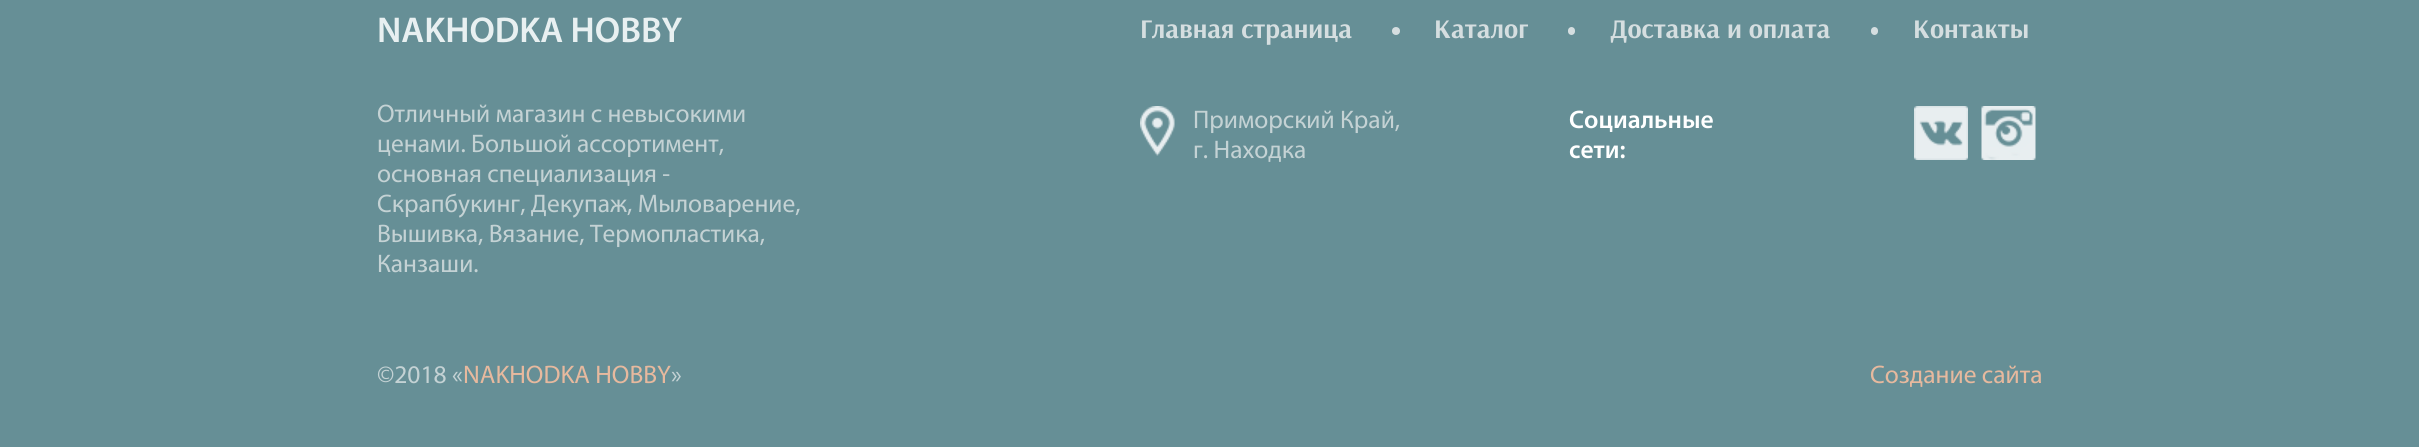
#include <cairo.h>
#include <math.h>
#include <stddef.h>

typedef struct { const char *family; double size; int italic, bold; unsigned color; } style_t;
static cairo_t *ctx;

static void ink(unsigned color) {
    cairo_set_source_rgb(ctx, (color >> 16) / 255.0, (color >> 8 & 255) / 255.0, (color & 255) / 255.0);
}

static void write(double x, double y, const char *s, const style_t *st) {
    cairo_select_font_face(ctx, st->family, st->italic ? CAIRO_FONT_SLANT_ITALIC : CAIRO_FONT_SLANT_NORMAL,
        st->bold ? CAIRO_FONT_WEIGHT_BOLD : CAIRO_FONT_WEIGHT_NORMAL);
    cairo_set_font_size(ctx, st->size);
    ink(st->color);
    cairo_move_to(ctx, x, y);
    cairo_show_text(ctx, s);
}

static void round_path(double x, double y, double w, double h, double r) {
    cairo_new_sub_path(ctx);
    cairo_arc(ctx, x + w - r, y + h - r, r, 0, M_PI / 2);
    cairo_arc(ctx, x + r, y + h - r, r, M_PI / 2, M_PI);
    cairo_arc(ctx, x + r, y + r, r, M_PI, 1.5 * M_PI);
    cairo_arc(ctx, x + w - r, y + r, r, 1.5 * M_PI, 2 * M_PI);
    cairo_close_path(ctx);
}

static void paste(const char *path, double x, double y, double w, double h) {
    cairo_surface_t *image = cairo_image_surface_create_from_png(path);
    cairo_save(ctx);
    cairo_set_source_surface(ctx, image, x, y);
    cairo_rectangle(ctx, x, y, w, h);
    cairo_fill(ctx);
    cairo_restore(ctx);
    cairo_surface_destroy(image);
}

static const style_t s1 = {"Myriad SemiBold", 36, 0, 0, 0xe8f0f1};
static const style_t s2 = {"Myriad", 25.5, 0, 0, 0xc4d2d4};
static const style_t s3 = {"Arsenal", 27, 0, 1, 0xd5dee0};
static const style_t s4 = {"Myriad SemiBold", 25.5, 0, 0, 0xffffff};
static const style_t s5 = {"Myriad", 25.5, 0, 0, 0xe7b99e};

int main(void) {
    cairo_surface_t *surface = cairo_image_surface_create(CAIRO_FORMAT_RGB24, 2419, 447);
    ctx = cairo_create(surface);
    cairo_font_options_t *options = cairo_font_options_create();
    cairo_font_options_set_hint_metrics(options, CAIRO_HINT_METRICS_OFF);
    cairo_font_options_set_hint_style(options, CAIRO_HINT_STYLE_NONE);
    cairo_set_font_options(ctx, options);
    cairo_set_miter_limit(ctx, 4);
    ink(0x668f96);
    cairo_paint(ctx);
    write(377, 42, "NAKHODKA HOBBY", &s1);
    write(377, 122, "Отличный магазин с невысокими", &s2);
    write(377, 152, "ценами. Большой ассортимент,", &s2);
    write(377, 182, "основная специализация -", &s2);
    write(377, 212, "Скрапбукинг, Декупаж, Мыловарение,", &s2);
    write(377, 242, "Вышивка, Вязание, Термопластика,", &s2);
    write(377, 272, "Канзаши.", &s2);
    write(1140, 38, "Главная страница", &s3);
    cairo_new_path(ctx);
    cairo_arc(ctx, 1396, 31, 4, 0, 2 * M_PI);
    cairo_fill(ctx);
    write(1434, 38, "Каталог", &s3);
    round_path(1568, 27, 7, 8, 3.5);
    cairo_fill(ctx);
    write(1610, 38, "Доставка и оплата", &s3);
    round_path(1871, 27, 7, 8, 3.5);
    cairo_fill(ctx);
    write(1913, 38, "Контакты", &s3);
    paste("pic1.png", 1140, 106, 35, 50);
    write(1193, 128, "Приморский Край,", &s2);
    write(1193, 158, "г. Находка", &s2);
    write(1569, 128, "Социальные", &s4);
    write(1569, 158, "сети:", &s4);
    paste("pic2.png", 1914, 106, 54, 54);
    paste("pic3.png", 1981, 106, 55, 54);
    write(377, 383, "©2018 «", &s2);
    write(463, 383, "NAKHODKA HOBBY", &s5);
    write(671, 383, "»", &s2);
    write(1870, 383, "Создание сайта", &s5);
    cairo_surface_write_to_png(surface, "screenshot.png");
    cairo_font_options_destroy(options);
    cairo_destroy(ctx);
    cairo_surface_destroy(surface);
    return 0;
}
